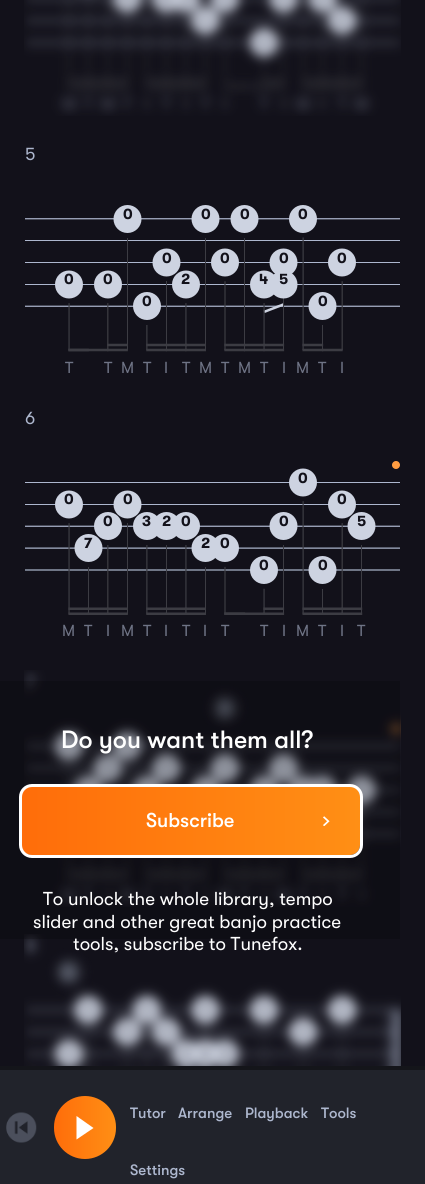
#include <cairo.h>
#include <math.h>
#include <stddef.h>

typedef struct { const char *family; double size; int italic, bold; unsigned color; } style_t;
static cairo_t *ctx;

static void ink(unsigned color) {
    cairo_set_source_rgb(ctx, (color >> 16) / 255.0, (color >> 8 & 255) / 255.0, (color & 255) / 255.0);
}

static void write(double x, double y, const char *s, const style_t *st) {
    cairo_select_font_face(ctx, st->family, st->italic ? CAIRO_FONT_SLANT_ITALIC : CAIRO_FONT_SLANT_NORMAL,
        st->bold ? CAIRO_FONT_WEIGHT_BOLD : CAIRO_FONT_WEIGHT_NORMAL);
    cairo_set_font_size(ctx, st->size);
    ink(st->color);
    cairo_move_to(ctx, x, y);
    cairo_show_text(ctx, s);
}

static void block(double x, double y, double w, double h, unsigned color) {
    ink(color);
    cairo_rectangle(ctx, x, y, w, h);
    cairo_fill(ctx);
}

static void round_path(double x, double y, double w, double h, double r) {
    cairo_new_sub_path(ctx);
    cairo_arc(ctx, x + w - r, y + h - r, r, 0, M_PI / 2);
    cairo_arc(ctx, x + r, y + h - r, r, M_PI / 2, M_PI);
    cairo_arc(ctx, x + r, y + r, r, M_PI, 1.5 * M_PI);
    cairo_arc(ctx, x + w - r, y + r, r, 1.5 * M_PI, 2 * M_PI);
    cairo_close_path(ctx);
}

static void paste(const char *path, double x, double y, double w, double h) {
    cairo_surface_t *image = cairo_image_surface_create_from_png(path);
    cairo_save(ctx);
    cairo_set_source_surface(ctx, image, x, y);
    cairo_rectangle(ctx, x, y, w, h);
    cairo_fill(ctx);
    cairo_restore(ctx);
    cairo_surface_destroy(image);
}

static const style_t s1 = {"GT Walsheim", 18, 0, 0, 0xadb7ce};
static const style_t s2 = {"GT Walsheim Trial", 15, 0, 1, 0x12111a};
static const style_t s3 = {"GT Walsheim", 16, 0, 0, 0x6f7486};
static const style_t s4 = {"GT Walsheim Medium", 25, 0, 0, 0xffffff};
static const style_t s5 = {"GT Walsheim Medium", 20, 0, 0, 0xffffff};
static const style_t s6 = {"GT Walsheim", 18.75, 0, 0, 0xffffff};
static const style_t s7 = {"GT Walsheim Medium", 15, 0, 0, 0xadb7ce};

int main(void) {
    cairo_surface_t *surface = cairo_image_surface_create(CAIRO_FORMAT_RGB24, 425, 1184);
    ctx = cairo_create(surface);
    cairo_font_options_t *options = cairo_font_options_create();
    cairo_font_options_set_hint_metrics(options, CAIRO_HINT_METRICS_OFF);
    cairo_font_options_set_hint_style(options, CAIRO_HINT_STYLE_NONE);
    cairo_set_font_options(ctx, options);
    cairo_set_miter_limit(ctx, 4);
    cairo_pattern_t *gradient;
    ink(0x12111a);
    cairo_paint(ctx);
    paste("pic1.png", 24, 0, 377, 116);
    write(25, 160, "5", &s1);
    paste("pic2.png", 25, 205, 375, 147);
    write(123, 219, "0", &s2);
    write(201, 219, "0", &s2);
    write(240, 219, "0", &s2);
    write(298, 219, "0", &s2);
    write(162, 263, "0", &s2);
    write(220, 263, "0", &s2);
    write(279, 263, "0", &s2);
    write(337, 263, "0", &s2);
    write(64, 284, "0", &s2);
    write(103, 284, "0", &s2);
    write(181, 284, "2", &s2);
    write(259, 284, "4", &s2);
    write(279, 284, "5", &s2);
    write(142, 306, "0", &s2);
    write(318, 306, "0", &s2);
    write(65, 373, "T", &s3);
    write(104, 373, "T", &s3);
    write(121, 373, "M", &s3);
    write(143, 373, "T", &s3);
    write(164, 373, "I", &s3);
    write(182, 373, "T", &s3);
    write(199, 373, "M", &s3);
    write(221, 373, "T", &s3);
    write(238, 373, "M", &s3);
    write(260, 373, "T", &s3);
    write(282, 373, "I", &s3);
    write(296, 373, "M", &s3);
    write(318, 373, "T", &s3);
    write(340, 373, "I", &s3);
    write(25, 424, "6", &s1);
    paste("pic3.png", 25, 461, 375, 154);
    write(298, 483, "0", &s2);
    write(64, 504, "0", &s2);
    write(123, 504, "0", &s2);
    write(337, 504, "0", &s2);
    write(103, 526, "0", &s2);
    write(142, 526, "3", &s2);
    write(162, 526, "2", &s2);
    write(181, 526, "0", &s2);
    write(279, 526, "0", &s2);
    write(357, 526, "5", &s2);
    write(84, 548, "7", &s2);
    write(201, 548, "2", &s2);
    write(220, 548, "0", &s2);
    write(259, 570, "0", &s2);
    write(318, 570, "0", &s2);
    write(62, 636, "M", &s3);
    write(84, 636, "T", &s3);
    write(106, 636, "I", &s3);
    write(121, 636, "M", &s3);
    write(143, 636, "T", &s3);
    write(164, 636, "I", &s3);
    write(182, 636, "T", &s3);
    write(203, 636, "I", &s3);
    write(221, 636, "T", &s3);
    write(260, 636, "T", &s3);
    write(282, 636, "I", &s3);
    write(296, 636, "M", &s3);
    write(318, 636, "T", &s3);
    write(340, 636, "I", &s3);
    write(357, 636, "T", &s3);
    paste("pic4.png", 24, 670, 377, 237);
    paste("pic6.png", 24, 934, 377, 132);
    cairo_set_source_rgba(ctx, 0, 0, 0, 0.2);
    cairo_rectangle(ctx, 0, 681, 400, 258);
    cairo_fill(ctx);
    write(61, 748, "Do you want them all?", &s4);
    gradient = cairo_pattern_create_linear(21, 821, 360, 821);
    cairo_pattern_add_color_stop_rgba(gradient, 0, 1, 0.427, 0.039, 1);
    cairo_pattern_add_color_stop_rgba(gradient, 1, 1, 0.561, 0.082, 1);
    cairo_set_source(ctx, gradient);
    cairo_pattern_destroy(gradient);
    round_path(21, 786, 339, 69, 10);
    cairo_fill(ctx);
    paste("pic5.png", 323, 816, 7, 10);
    round_path(20.5, 785.5, 341, 71, 11.5);
    ink(0xffffff);
    cairo_set_line_width(ctx, 3);
    cairo_stroke(ctx);
    write(146, 827, "Subscribe", &s5);
    write(43, 905, "To unlock the whole library, tempo", &s6);
    write(33, 928, "slider and other great banjo practice", &s6);
    write(73, 950, "tools, subscribe to Tunefox.", &s6);
    block(0, 1070, 425, 114, 0x21232b);
    block(0, 1066, 425, 4, 0x14151a);
    paste("pic7.png", 6, 1112, 31, 31);
    gradient = cairo_pattern_create_linear(54, 1128, 116, 1128);
    cairo_pattern_add_color_stop_rgba(gradient, 0, 1, 0.427, 0.039, 1);
    cairo_pattern_add_color_stop_rgba(gradient, 1, 1, 0.561, 0.082, 1);
    cairo_set_source(ctx, gradient);
    cairo_pattern_destroy(gradient);
    round_path(54, 1096, 62, 63, 31);
    cairo_fill(ctx);
    ink(0xffffff);
    cairo_set_fill_rule(ctx, CAIRO_FILL_RULE_EVEN_ODD);
    cairo_new_path(ctx);
    cairo_move_to(ctx, 76.5, 1116);
    cairo_line_to(ctx, 93.5, 1128);
    cairo_line_to(ctx, 76.5, 1139.5);
    cairo_close_path(ctx);
    cairo_fill(ctx);
    write(130, 1118, "Tutor", &s7);
    write(178, 1118, "Arrange", &s7);
    write(245, 1118, "Playback", &s7);
    write(321, 1118, "Tools", &s7);
    write(130, 1175, "Settings", &s7);
    cairo_surface_write_to_png(surface, "screenshot.png");
    cairo_font_options_destroy(options);
    cairo_destroy(ctx);
    cairo_surface_destroy(surface);
    return 0;
}
